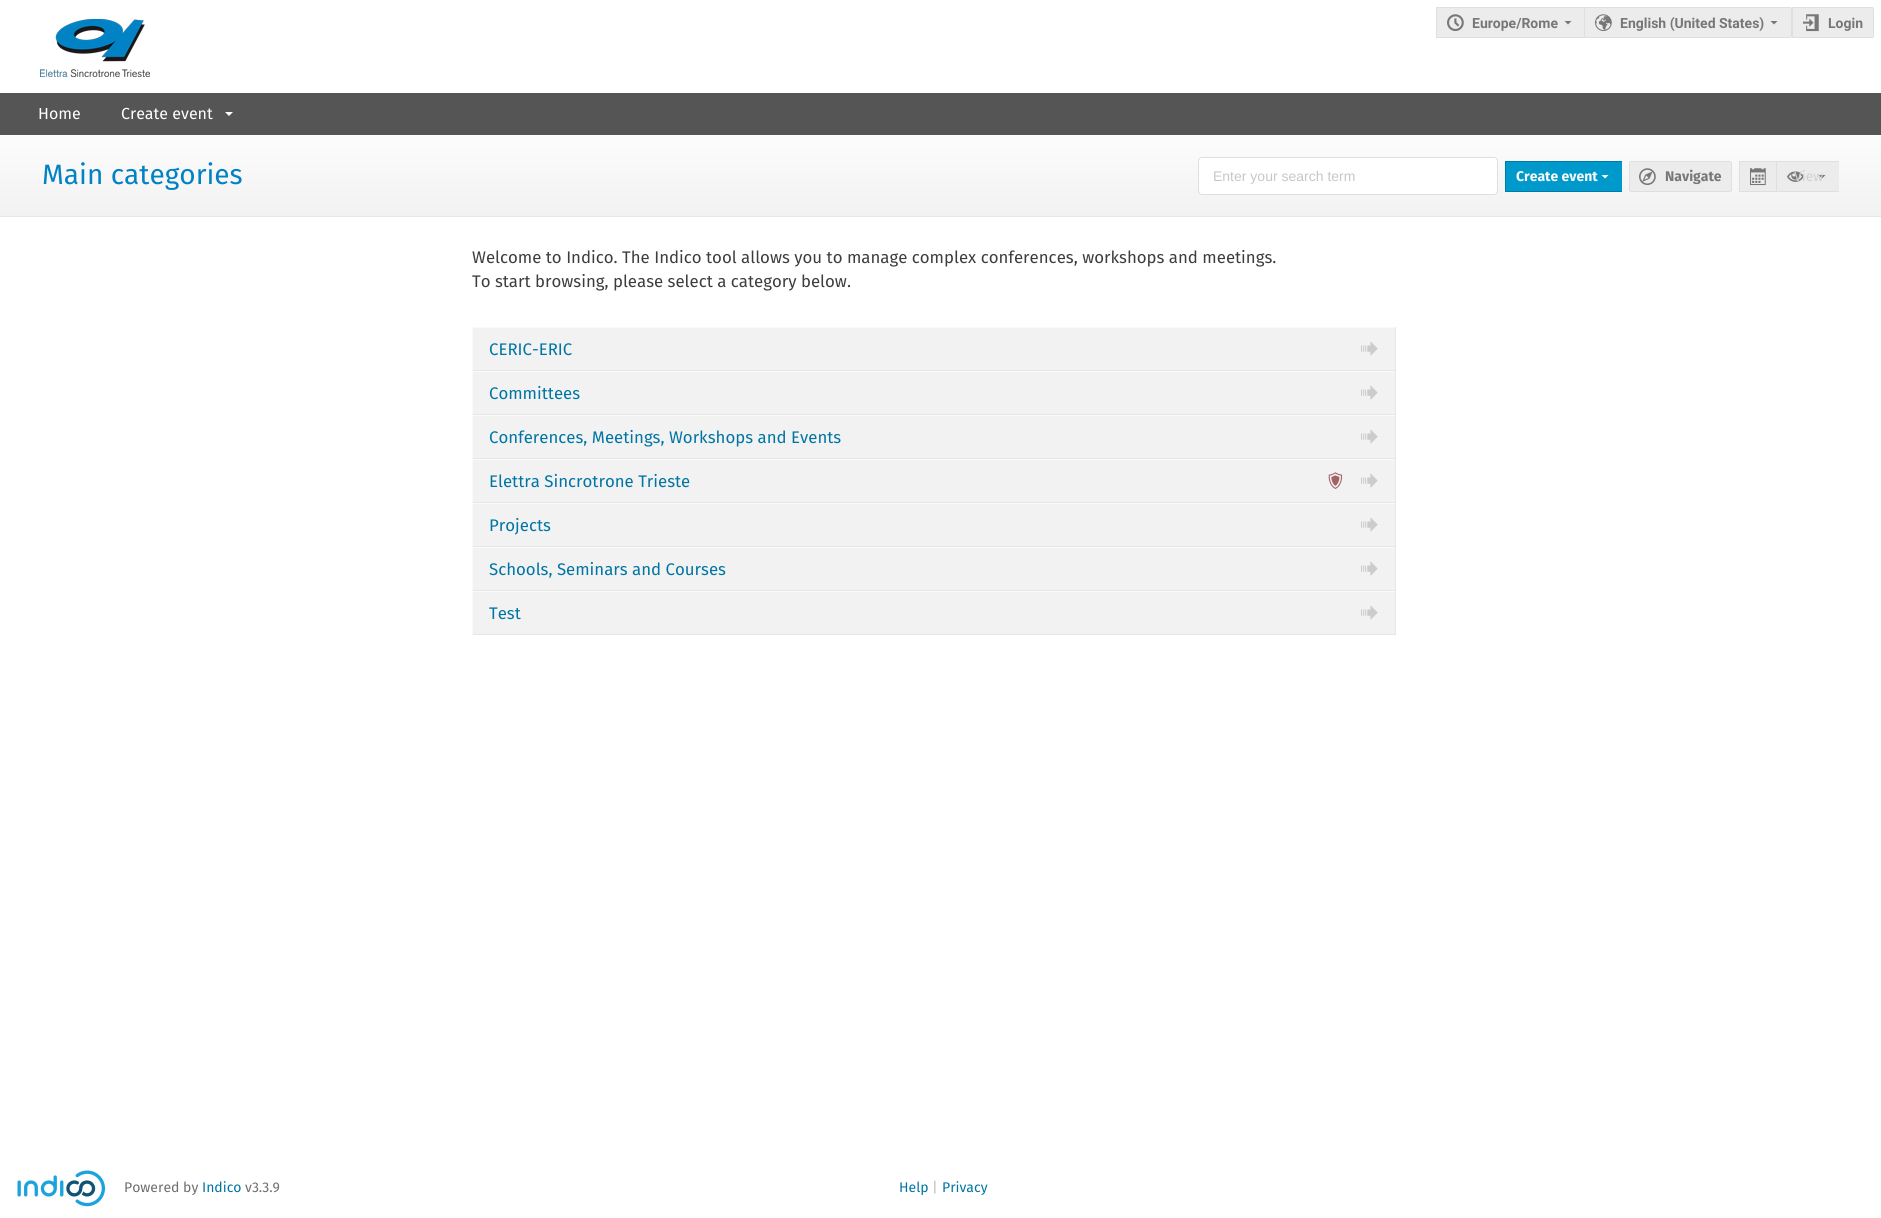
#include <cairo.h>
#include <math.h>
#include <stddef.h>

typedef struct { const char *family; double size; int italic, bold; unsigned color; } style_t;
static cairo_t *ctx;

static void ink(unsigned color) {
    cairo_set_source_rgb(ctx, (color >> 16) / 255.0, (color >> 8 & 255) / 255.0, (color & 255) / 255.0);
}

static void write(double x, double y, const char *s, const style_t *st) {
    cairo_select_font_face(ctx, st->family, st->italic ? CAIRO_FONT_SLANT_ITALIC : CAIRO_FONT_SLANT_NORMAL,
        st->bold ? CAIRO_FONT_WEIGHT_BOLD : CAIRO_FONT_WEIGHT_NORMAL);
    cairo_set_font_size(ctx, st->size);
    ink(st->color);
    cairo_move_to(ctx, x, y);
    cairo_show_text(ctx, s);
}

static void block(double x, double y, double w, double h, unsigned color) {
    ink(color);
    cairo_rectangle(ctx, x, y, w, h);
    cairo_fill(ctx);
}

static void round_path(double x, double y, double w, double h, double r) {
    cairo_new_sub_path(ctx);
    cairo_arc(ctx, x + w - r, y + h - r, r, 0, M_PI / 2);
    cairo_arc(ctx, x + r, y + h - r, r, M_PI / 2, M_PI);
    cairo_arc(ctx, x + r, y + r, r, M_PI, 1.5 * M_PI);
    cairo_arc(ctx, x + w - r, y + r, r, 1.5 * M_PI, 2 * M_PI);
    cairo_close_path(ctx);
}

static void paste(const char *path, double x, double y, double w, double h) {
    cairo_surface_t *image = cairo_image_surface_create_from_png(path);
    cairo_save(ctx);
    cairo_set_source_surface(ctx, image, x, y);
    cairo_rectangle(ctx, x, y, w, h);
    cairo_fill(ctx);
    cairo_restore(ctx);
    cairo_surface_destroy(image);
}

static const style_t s1 = {"Roboto", 14, 0, 1, 0x777777};
static const style_t s2 = {"Fira Sans", 16, 0, 0, 0xffffff};
static const style_t s3 = {"Fira Sans", 28, 0, 0, 0x0082c4};
static const style_t s4 = {"Liberation Sans", 14, 0, 0, 0xc7c7c7};
static const style_t s5 = {"Fira Sans", 14, 0, 1, 0xf9f9f9};
static const style_t s6 = {"Fira Sans", 14, 0, 1, 0x777777};
static const style_t s7 = {"Fira Sans", 14, 0, 0, 0xd0d0d0};
static const style_t s8 = {"Fira Sans", 16.8, 0, 0, 0x3d3d3d};
static const style_t s9 = {"Fira Sans", 16.8, 0, 0, 0x0075a3};
static const style_t s10 = {"Fira Sans", 14, 0, 0, 0x6e6e6e};
static const style_t s11 = {"Fira Sans", 14, 0, 0, 0x0075a3};
static const style_t s12 = {"Fira Sans", 14, 0, 0, 0xbbbbbb};

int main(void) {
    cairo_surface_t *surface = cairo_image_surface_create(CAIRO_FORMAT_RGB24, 1881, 1218);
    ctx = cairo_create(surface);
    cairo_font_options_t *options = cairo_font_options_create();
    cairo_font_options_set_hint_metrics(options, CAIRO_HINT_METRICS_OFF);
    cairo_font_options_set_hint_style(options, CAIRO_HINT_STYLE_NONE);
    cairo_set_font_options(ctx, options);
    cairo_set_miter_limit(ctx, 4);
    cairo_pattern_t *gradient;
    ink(0xffffff);
    cairo_paint(ctx);
    paste("pic1.png", 40, 18, 110, 59);
    block(1437, 8, 147, 29, 0xececec);
    block(1436, 7, 148, 1, 0xdfdfdf);
    block(1436, 37, 148, 1, 0xdfdfdf);
    block(1436, 7, 1, 31, 0xdfdfdf);
    paste("pic2.png", 1447, 14, 17, 17);
    write(1472, 28, "Europe/Rome", &s1);
    cairo_new_path(ctx);
    cairo_move_to(ctx, 1564.5, 21);
    cairo_line_to(ctx, 1568, 24.5);
    cairo_line_to(ctx, 1571.5, 21);
    cairo_close_path(ctx);
    cairo_fill(ctx);
    ink(0xececec);
    cairo_new_path(ctx);
    cairo_move_to(ctx, 1584.5, 7.5);
    cairo_line_to(ctx, 1790, 7.5);
    cairo_curve_to(ctx, 1791, 7.5, 1791.5, 8, 1791.5, 9);
    cairo_line_to(ctx, 1791.5, 36);
    cairo_curve_to(ctx, 1791.5, 37, 1791, 37.5, 1790, 37.5);
    cairo_line_to(ctx, 1584.5, 37.5);
    cairo_close_path(ctx);
    cairo_fill_preserve(ctx);
    ink(0xdfdfdf);
    cairo_set_line_width(ctx, 1);
    cairo_stroke(ctx);
    paste("pic3.png", 1595, 14, 17, 17);
    write(1620, 28, "English (United States)", &s1);
    cairo_new_path(ctx);
    cairo_move_to(ctx, 1770.5, 21);
    cairo_line_to(ctx, 1774, 24.5);
    cairo_line_to(ctx, 1777.5, 21);
    cairo_close_path(ctx);
    cairo_fill(ctx);
    ink(0xececec);
    cairo_new_path(ctx);
    cairo_move_to(ctx, 1792.5, 7.5);
    cairo_line_to(ctx, 1872, 7.5);
    cairo_curve_to(ctx, 1873, 7.5, 1873.5, 8, 1873.5, 9);
    cairo_line_to(ctx, 1873.5, 36);
    cairo_curve_to(ctx, 1873.5, 37, 1873, 37.5, 1872, 37.5);
    cairo_line_to(ctx, 1792.5, 37.5);
    cairo_close_path(ctx);
    cairo_fill_preserve(ctx);
    ink(0xdfdfdf);
    cairo_stroke(ctx);
    paste("pic4.png", 1803, 14, 16, 18);
    write(1828, 28, "Login", &s1);
    block(0, 93, 1881, 42, 0x555555);
    write(38, 119, "Home", &s2);
    write(121, 119, "Create event", &s2);
    cairo_new_path(ctx);
    cairo_move_to(ctx, 225, 112);
    cairo_line_to(ctx, 229, 116);
    cairo_line_to(ctx, 233, 112);
    cairo_close_path(ctx);
    cairo_fill(ctx);
    gradient = cairo_pattern_create_linear(941, 136, 941, 216);
    cairo_pattern_add_color_stop_rgba(gradient, 0, 0.988, 0.988, 0.988, 1);
    cairo_pattern_add_color_stop_rgba(gradient, 1, 0.949, 0.949, 0.949, 1);
    cairo_set_source(ctx, gradient);
    cairo_pattern_destroy(gradient);
    cairo_rectangle(ctx, 0, 136, 1881, 80);
    cairo_fill(ctx);
    block(0, 216, 1881, 1, 0xe6e6e6);
    write(42, 184, "Main categories", &s3);
    ink(0xffffff);
    round_path(1198, 157, 300, 38, 4);
    cairo_fill(ctx);
    round_path(1198.5, 157.5, 299, 37, 3.5);
    cairo_set_source_rgba(ctx, 0.133, 0.141, 0.149, 0.15);
    cairo_stroke(ctx);
    write(1213, 181, "Enter your search term", &s4);
    block(1506, 162, 116, 29, 0x0099cc);
    block(1505, 161, 117, 1, 0x007cac);
    block(1505, 191, 117, 1, 0x007cac);
    block(1505, 161, 1, 31, 0x007cac);
    write(1516, 181, "Create event", &s5);
    cairo_new_path(ctx);
    cairo_move_to(ctx, 1601.5, 175);
    cairo_line_to(ctx, 1605, 178.5);
    cairo_line_to(ctx, 1608.5, 175);
    cairo_close_path(ctx);
    cairo_fill(ctx);
    ink(0xececec);
    round_path(1629.5, 161.5, 102, 30, 1.5);
    cairo_fill_preserve(ctx);
    ink(0xdfdfdf);
    cairo_stroke(ctx);
    paste("pic5.png", 1639, 168, 17, 17);
    write(1665, 181, "Navigate", &s6);
    block(1740, 162, 36, 29, 0xececec);
    block(1739, 161, 100, 1, 0xdfdfdf);
    block(1739, 191, 100, 1, 0xdfdfdf);
    block(1739, 161, 1, 31, 0xdfdfdf);
    paste("pic6.png", 1750, 168, 16, 18);
    block(1777, 162, 62, 29, 0xececec);
    block(1776, 161, 1, 31, 0xdfdfdf);
    paste("pic7.png", 1787, 171, 17, 11);
    ink(0x777777);
    cairo_new_path(ctx);
    cairo_move_to(ctx, 1818.5, 175);
    cairo_line_to(ctx, 1822, 178.5);
    cairo_line_to(ctx, 1825.5, 175);
    cairo_close_path(ctx);
    cairo_fill(ctx);
    write(1794, 181, "View", &s7);
    write(472, 263, "Welcome to Indico. The Indico tool allows you to manage complex conferences, workshops and meetings.", &s8);
    write(472, 287, "To start browsing, please select a category below.", &s8);
    block(1395, 327, 1, 308, 0xe6e6e6);
    block(472, 327, 1, 308, 0xfafafa);
    block(473, 328, 922, 42, 0xf2f2f2);
    block(473, 327, 922, 1, 0xfafafa);
    block(473, 370, 922, 1, 0xe6e6e6);
    write(489, 355, "CERIC-ERIC", &s9);
    paste("pic8.png", 1361, 341, 17, 15);
    block(473, 372, 922, 42, 0xf2f2f2);
    block(473, 371, 922, 1, 0xfafafa);
    block(473, 414, 922, 1, 0xe6e6e6);
    write(489, 399, "Committees", &s9);
    paste("pic8.png", 1361, 385, 17, 15);
    block(473, 416, 922, 42, 0xf2f2f2);
    block(473, 415, 922, 1, 0xfafafa);
    block(473, 458, 922, 1, 0xe6e6e6);
    write(489, 443, "Conferences, Meetings, Workshops and Events", &s9);
    paste("pic8.png", 1361, 429, 17, 15);
    block(473, 460, 922, 42, 0xf2f2f2);
    block(473, 459, 922, 1, 0xfafafa);
    block(473, 502, 922, 1, 0xe6e6e6);
    write(489, 487, "Elettra Sincrotrone Trieste", &s9);
    paste("pic9.png", 1328, 472, 15, 17);
    paste("pic8.png", 1361, 473, 17, 15);
    block(473, 504, 922, 42, 0xf2f2f2);
    block(473, 503, 922, 1, 0xfafafa);
    block(473, 546, 922, 1, 0xe6e6e6);
    write(489, 531, "Projects", &s9);
    paste("pic8.png", 1361, 517, 17, 15);
    block(473, 548, 922, 42, 0xf2f2f2);
    block(473, 547, 922, 1, 0xfafafa);
    block(473, 590, 922, 1, 0xe6e6e6);
    write(489, 575, "Schools, Seminars and Courses", &s9);
    paste("pic8.png", 1361, 561, 17, 15);
    block(473, 592, 922, 42, 0xf2f2f2);
    block(473, 591, 922, 1, 0xfafafa);
    block(473, 634, 922, 1, 0xe6e6e6);
    write(489, 619, "Test", &s9);
    paste("pic8.png", 1361, 605, 17, 15);
    paste("pic10.png", 17, 1170, 88, 37);
    write(124, 1192, "Powered by", &s10);
    write(202, 1192, "Indico", &s11);
    write(245, 1192, "v3.3.9", &s10);
    write(899, 1192, "Help", &s11);
    write(932, 1192, "|", &s12);
    write(942, 1192, "Privacy", &s11);
    cairo_surface_write_to_png(surface, "screenshot.png");
    cairo_font_options_destroy(options);
    cairo_destroy(ctx);
    cairo_surface_destroy(surface);
    return 0;
}
